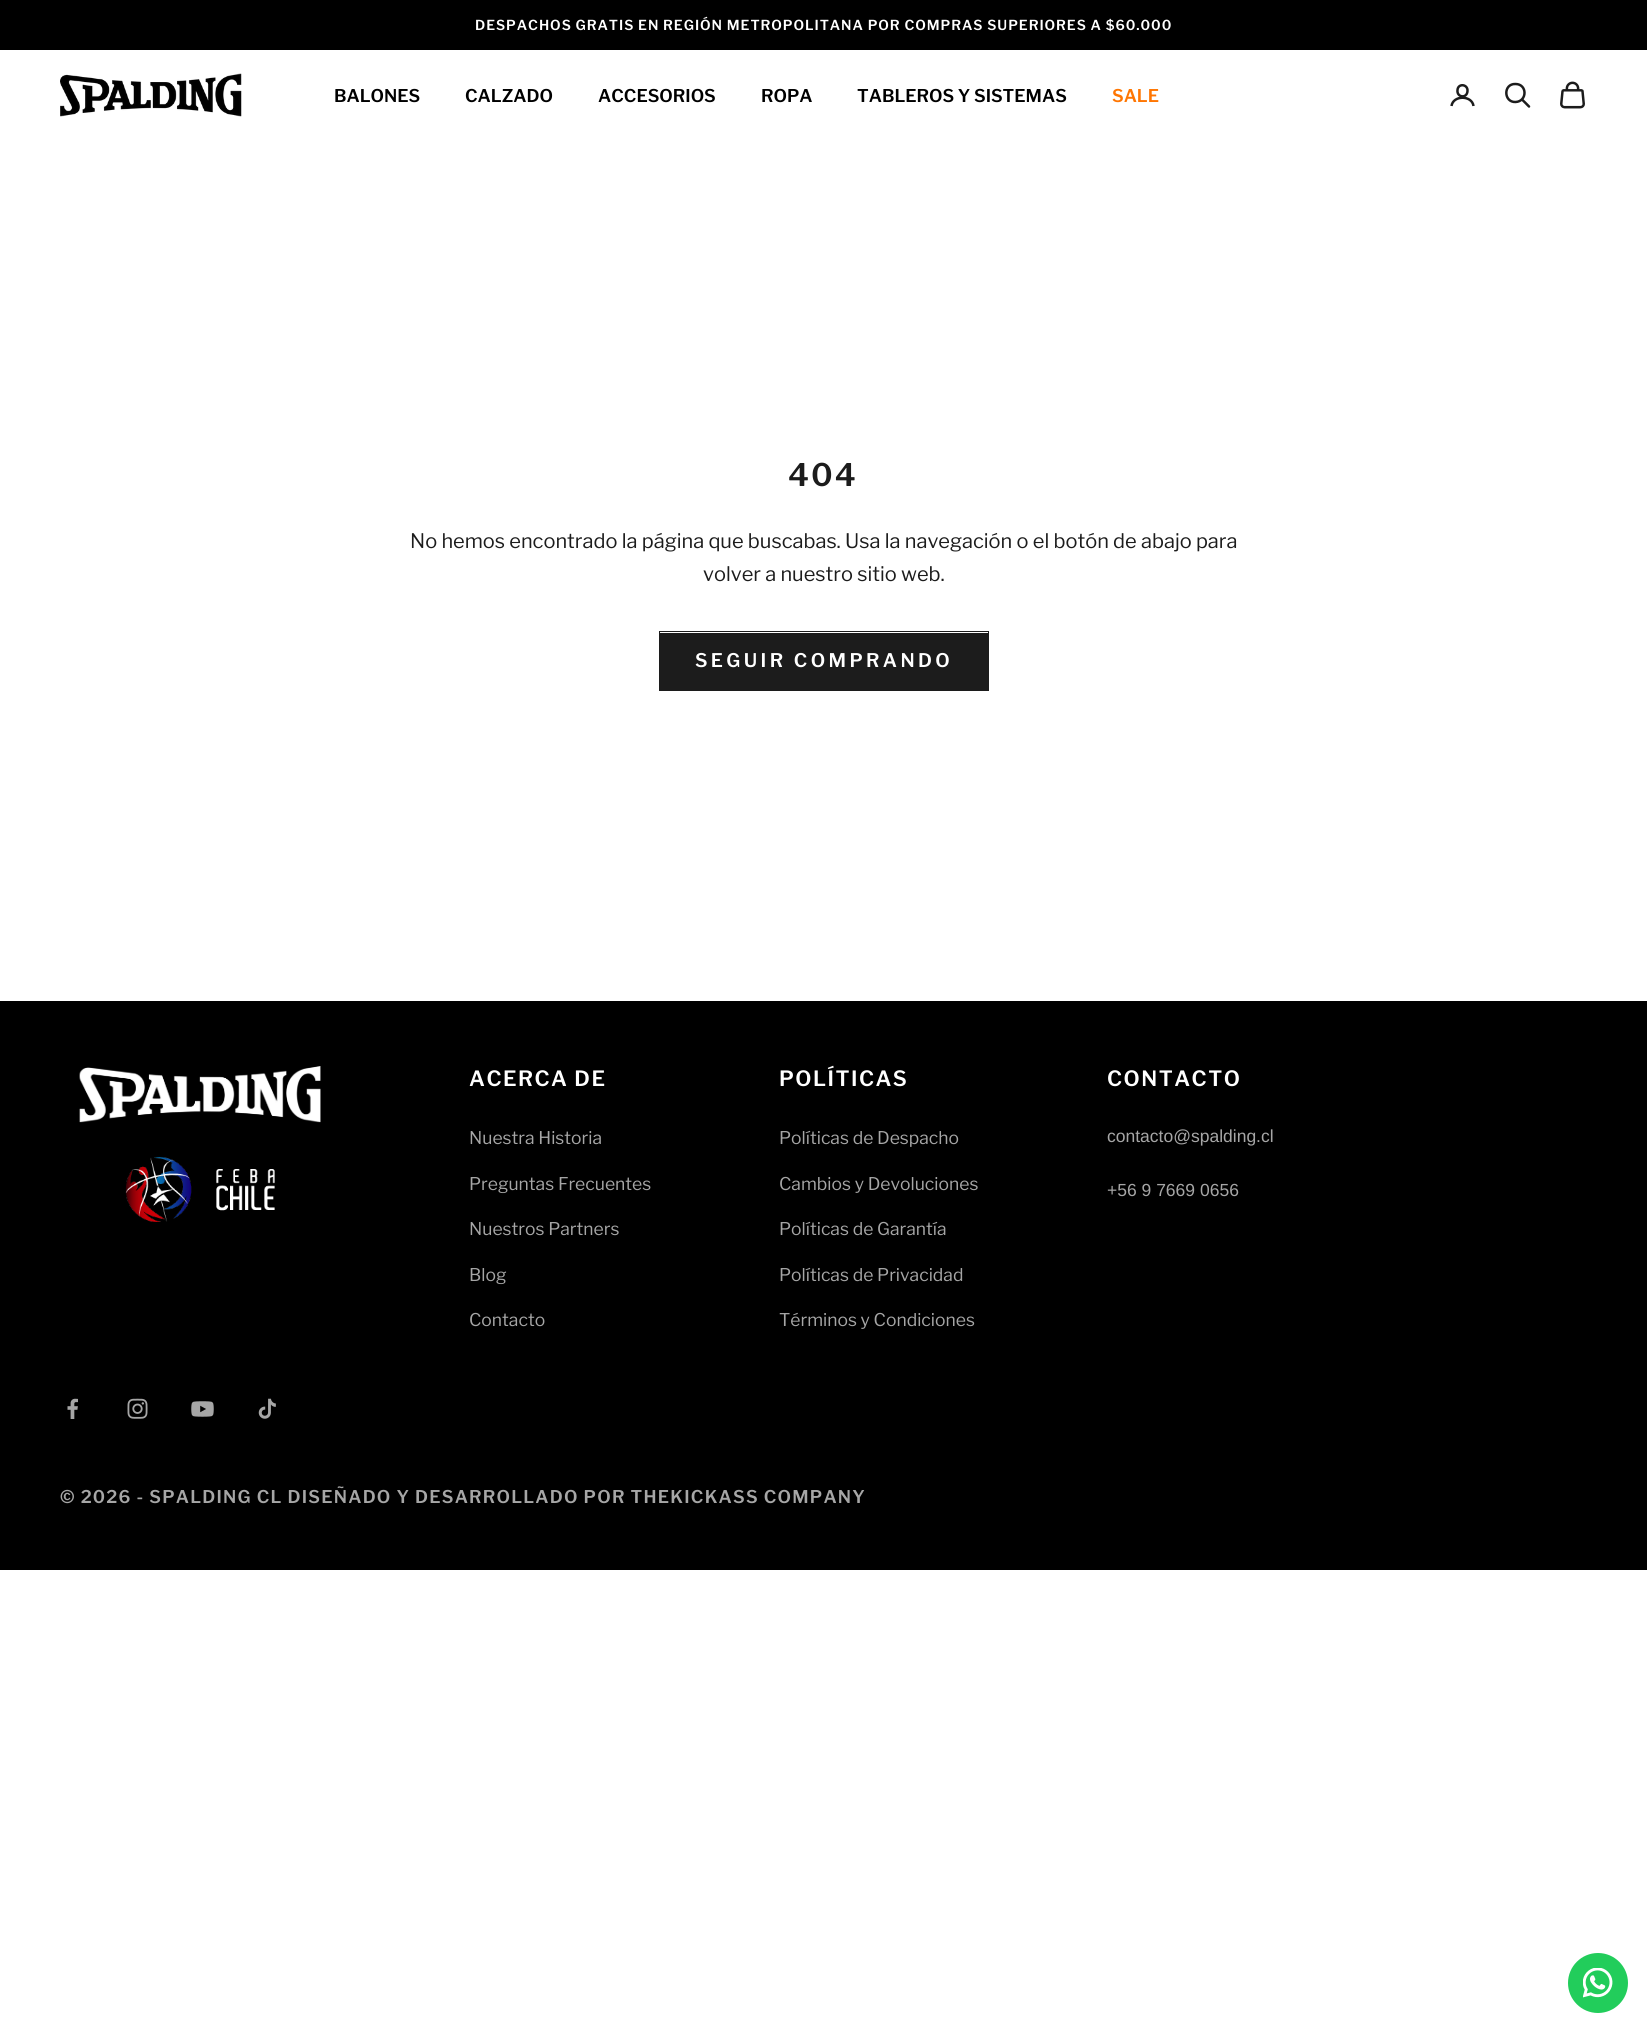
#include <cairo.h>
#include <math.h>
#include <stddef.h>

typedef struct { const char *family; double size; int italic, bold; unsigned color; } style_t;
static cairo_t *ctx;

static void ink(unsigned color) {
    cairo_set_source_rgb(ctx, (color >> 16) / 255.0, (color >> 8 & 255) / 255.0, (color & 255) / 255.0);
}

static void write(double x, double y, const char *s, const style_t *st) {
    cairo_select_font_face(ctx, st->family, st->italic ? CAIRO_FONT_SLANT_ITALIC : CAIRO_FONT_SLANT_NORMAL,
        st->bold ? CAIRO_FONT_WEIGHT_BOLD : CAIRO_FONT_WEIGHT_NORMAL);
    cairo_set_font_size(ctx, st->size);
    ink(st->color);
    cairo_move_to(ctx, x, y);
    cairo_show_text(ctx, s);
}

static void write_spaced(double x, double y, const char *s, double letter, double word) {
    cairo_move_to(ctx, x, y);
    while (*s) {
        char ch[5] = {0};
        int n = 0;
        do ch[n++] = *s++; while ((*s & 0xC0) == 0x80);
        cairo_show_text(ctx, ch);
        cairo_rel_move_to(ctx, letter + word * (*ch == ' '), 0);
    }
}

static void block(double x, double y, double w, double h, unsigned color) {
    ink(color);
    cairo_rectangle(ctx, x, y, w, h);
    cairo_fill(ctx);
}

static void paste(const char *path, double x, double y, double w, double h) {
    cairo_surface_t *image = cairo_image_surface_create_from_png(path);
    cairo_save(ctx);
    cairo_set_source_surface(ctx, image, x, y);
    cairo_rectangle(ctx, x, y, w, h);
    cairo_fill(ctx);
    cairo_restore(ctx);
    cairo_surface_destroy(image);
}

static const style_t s1 = {"Libre Franklin SemiBold", 17.5, 0, 0, 0x000000};
static const style_t s2 = {"Libre Franklin SemiBold", 17.5, 0, 0, 0xff7602};
static const style_t s3 = {"Libre Franklin", 20, 0, 0, 0x1c1c1c};
static const style_t s4 = {"Libre Franklin", 17.5, 0, 0, 0xa6a6a6};
static const style_t s5 = {"Liberation Sans", 17.5, 0, 0, 0xa6a6a6};

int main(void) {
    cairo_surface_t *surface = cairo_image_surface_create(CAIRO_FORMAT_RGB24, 1647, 2032);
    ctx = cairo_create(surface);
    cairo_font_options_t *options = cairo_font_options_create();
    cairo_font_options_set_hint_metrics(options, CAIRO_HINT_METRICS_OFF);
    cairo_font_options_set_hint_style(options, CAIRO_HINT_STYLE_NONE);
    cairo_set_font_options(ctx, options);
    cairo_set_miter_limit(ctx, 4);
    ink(0xffffff);
    cairo_paint(ctx);
    block(0, 0, 1647, 50, 0x000000);
    cairo_select_font_face(ctx, "Libre Franklin SemiBold", CAIRO_FONT_SLANT_NORMAL, CAIRO_FONT_WEIGHT_NORMAL);
    cairo_set_font_size(ctx, 13.75);
    ink(0xffffff);
    write_spaced(475, 30, "DESPACHOS GRATIS EN REGIÓN METROPOLITANA POR COMPRAS SUPERIORES A $60.000", 0.95, 0);
    paste("pic1.png", 60, 73, 182, 44);
    write(334, 102, "BALONES", &s1);
    write(465, 102, "CALZADO", &s1);
    write(598, 102, "ACCESORIOS", &s1);
    write(761, 102, "ROPA", &s1);
    write(857, 102, "TABLEROS Y SISTEMAS", &s1);
    write(1112, 102, "SALE", &s2);
    cairo_new_path(ctx);
    cairo_move_to(ctx, 1467.5, 91);
    cairo_curve_to(ctx, 1467, 99, 1456.5, 97.5, 1457.5, 90);
    cairo_curve_to(ctx, 1458, 83, 1468, 84, 1467.5, 91);
    cairo_close_path(ctx);
    ink(0x1c1c1c);
    cairo_set_line_width(ctx, 2.5);
    cairo_set_line_cap(ctx, CAIRO_LINE_CAP_ROUND);
    cairo_set_line_join(ctx, CAIRO_LINE_JOIN_ROUND);
    cairo_stroke(ctx);
    cairo_new_path(ctx);
    cairo_move_to(ctx, 1451.5, 106);
    cairo_curve_to(ctx, 1453, 95, 1472, 95, 1473.5, 106);
    cairo_set_line_cap(ctx, CAIRO_LINE_CAP_BUTT);
    cairo_set_line_join(ctx, CAIRO_LINE_JOIN_MITER);
    cairo_stroke(ctx);
    cairo_new_path(ctx);
    cairo_move_to(ctx, 1515.5, 84);
    cairo_curve_to(ctx, 1503, 83.5, 1503.5, 102.5, 1515.5, 102);
    cairo_curve_to(ctx, 1527.5, 101.5, 1527.5, 84, 1515.5, 84);
    cairo_close_path(ctx);
    cairo_stroke(ctx);
    cairo_new_path(ctx);
    cairo_move_to(ctx, 1522.5, 100);
    cairo_line_to(ctx, 1529, 106.5);
    cairo_set_line_cap(ctx, CAIRO_LINE_CAP_ROUND);
    cairo_stroke(ctx);
    paste("pic2.png", 1560, 81, 25, 28);
    cairo_set_font_size(ctx, 31);
    write_spaced(788, 486, "404", 2, 0);
    write(410, 548, "No hemos encontrado la página que buscabas. Usa la navegación o el botón de abajo para", &s3);
    write(703, 581, "volver a nuestro sitio web.", &s3);
    block(660, 633, 328, 57, 0x1c1c1c);
    cairo_rectangle(ctx, 659.5, 631.5, 329, 59);
    cairo_set_line_width(ctx, 1);
    cairo_set_line_cap(ctx, CAIRO_LINE_CAP_BUTT);
    cairo_stroke(ctx);
    cairo_select_font_face(ctx, "Libre Franklin SemiBold", CAIRO_FONT_SLANT_NORMAL, CAIRO_FONT_WEIGHT_NORMAL);
    cairo_set_font_size(ctx, 18.75);
    ink(0xffffff);
    write_spaced(695, 667, "SEGUIR COMPRANDO", 3.4, 0);
    block(0, 1001, 1647, 569, 0x000000);
    paste("pic3.png", 79, 1066, 242, 156);
    cairo_set_font_size(ctx, 21);
    ink(0xffffff);
    write_spaced(469, 1086, "ACERCA DE", 1.5, 0);
    write(469, 1144, "Nuestra Historia", &s4);
    write(469, 1190, "Preguntas Frecuentes", &s4);
    write(469, 1235, "Nuestros Partners", &s4);
    write(469, 1281, "Blog", &s4);
    write(469, 1326, "Contacto", &s4);
    cairo_select_font_face(ctx, "Libre Franklin SemiBold", CAIRO_FONT_SLANT_NORMAL, CAIRO_FONT_WEIGHT_NORMAL);
    cairo_set_font_size(ctx, 21);
    ink(0xffffff);
    write_spaced(779, 1086, "POLÍTICAS", 1.5, 0);
    write(779, 1144, "Políticas de Despacho", &s4);
    write(779, 1190, "Cambios y Devoluciones", &s4);
    write(779, 1235, "Políticas de Garantía", &s4);
    write(779, 1281, "Políticas de Privacidad", &s4);
    write(779, 1326, "Términos y Condiciones", &s4);
    cairo_select_font_face(ctx, "Libre Franklin SemiBold", CAIRO_FONT_SLANT_NORMAL, CAIRO_FONT_WEIGHT_NORMAL);
    cairo_set_font_size(ctx, 21);
    ink(0xffffff);
    write_spaced(1107, 1086, "CONTACTO", 1.5, 0);
    write(1107, 1142, "contacto@spalding.cl", &s5);
    write(1107, 1196, "+56 9 7669 0656", &s5);
    paste("pic4.png", 67, 1398, 11, 21);
    paste("pic5.png", 127, 1398, 21, 21);
    paste("pic6.png", 191, 1401, 23, 16);
    paste("pic7.png", 258, 1398, 18, 21);
    cairo_select_font_face(ctx, "Libre Franklin SemiBold", CAIRO_FONT_SLANT_NORMAL, CAIRO_FONT_WEIGHT_NORMAL);
    write_spaced(60, 1503, "© 2026 - SPALDING CL DISEÑADO Y DESARROLLADO POR THEKICKASS COMPANY", 1.23, 0);
    ink(0x22cd5b);
    cairo_new_path(ctx);
    cairo_arc(ctx, 1598, 1983, 30, 0, 2 * M_PI);
    cairo_fill(ctx);
    paste("pic8.png", 1583, 1968, 30, 30);
    cairo_surface_write_to_png(surface, "screenshot.png");
    cairo_font_options_destroy(options);
    cairo_destroy(ctx);
    cairo_surface_destroy(surface);
    return 0;
}
